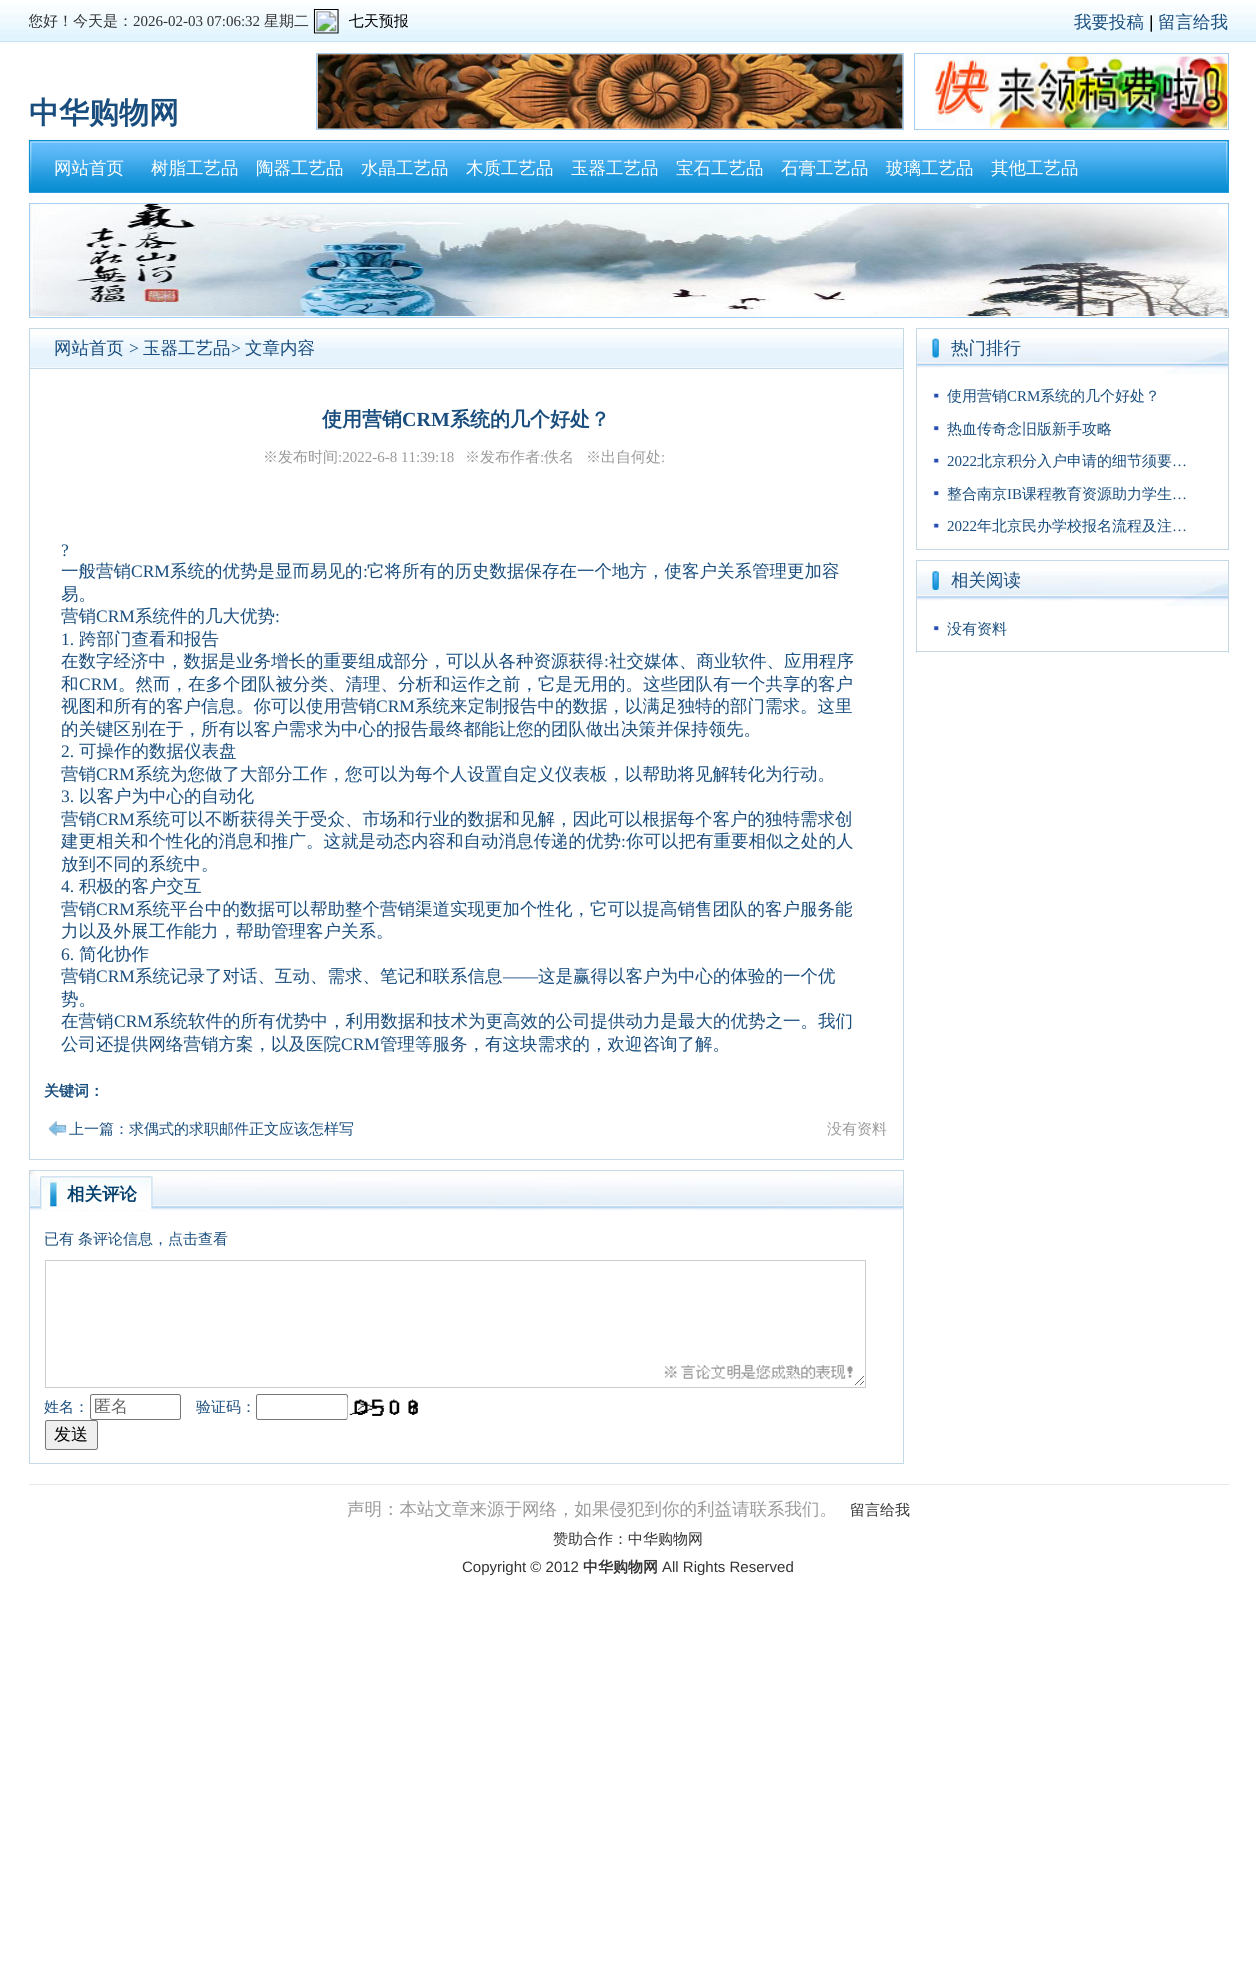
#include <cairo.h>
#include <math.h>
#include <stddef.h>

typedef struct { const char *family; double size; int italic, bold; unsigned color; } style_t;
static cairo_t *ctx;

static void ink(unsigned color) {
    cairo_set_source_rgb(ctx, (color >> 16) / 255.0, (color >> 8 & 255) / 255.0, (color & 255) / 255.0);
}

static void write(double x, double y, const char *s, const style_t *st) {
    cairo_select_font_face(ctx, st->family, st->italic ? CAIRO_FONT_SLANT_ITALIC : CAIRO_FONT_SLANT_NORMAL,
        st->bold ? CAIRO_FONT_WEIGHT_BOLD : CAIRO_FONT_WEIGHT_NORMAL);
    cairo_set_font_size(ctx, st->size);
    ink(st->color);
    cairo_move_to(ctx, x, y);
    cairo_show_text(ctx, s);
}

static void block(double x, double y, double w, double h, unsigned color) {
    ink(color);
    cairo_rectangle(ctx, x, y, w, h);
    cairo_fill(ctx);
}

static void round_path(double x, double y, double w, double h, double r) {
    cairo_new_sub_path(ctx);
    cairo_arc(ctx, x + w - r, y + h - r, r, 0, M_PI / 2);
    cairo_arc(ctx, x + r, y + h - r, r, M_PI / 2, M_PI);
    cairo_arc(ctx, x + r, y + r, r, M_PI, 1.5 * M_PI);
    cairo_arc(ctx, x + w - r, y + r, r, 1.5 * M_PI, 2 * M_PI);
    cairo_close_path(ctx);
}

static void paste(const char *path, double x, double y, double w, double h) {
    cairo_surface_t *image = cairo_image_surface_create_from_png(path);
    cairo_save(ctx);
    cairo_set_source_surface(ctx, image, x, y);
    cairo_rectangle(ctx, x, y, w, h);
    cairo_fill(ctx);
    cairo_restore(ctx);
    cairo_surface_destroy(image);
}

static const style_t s1 = {"WenQuanYi Zen Hei Medium", 15, 0, 0, 0x333333};
static const style_t s2 = {"Liberation Serif", 15, 0, 0, 0x333333};
static const style_t s3 = {"WenQuanYi Zen Hei Medium", 17.5, 0, 0, 0x194d7d};
static const style_t s4 = {"Liberation Sans", 17.5, 0, 0, 0x000000};
static const style_t s5 = {"WenQuanYi Zen Hei", 30, 0, 1, 0x194d7d};
static const style_t s6 = {"WenQuanYi Zen Hei Medium", 17.5, 0, 0, 0xffffff};
static const style_t s7 = {"Liberation Serif", 17.5, 0, 0, 0x194d7d};
static const style_t s8 = {"WenQuanYi Zen Hei", 20, 0, 1, 0x194d7d};
static const style_t s9 = {"Liberation Serif", 20, 0, 1, 0x194d7d};
static const style_t s10 = {"WenQuanYi Zen Hei Medium", 15, 0, 0, 0x999999};
static const style_t s11 = {"Liberation Serif", 15, 0, 0, 0x999999};
static const style_t s12 = {"WenQuanYi Zen Hei", 15, 0, 1, 0x194d7d};
static const style_t s13 = {"WenQuanYi Zen Hei Medium", 15, 0, 0, 0x194d7d};
static const style_t s14 = {"WenQuanYi Zen Hei", 17.5, 0, 1, 0x033f6d};
static const style_t s15 = {"WenQuanYi Zen Hei Medium", 17, 0, 0, 0x666666};
static const style_t s16 = {"WenQuanYi Zen Hei Medium", 17, 0, 0, 0x000000};
static const style_t s17 = {"Liberation Serif", 15, 0, 0, 0x194d7d};
static const style_t s18 = {"WenQuanYi Zen Hei Medium", 17.5, 0, 0, 0x999999};
static const style_t s19 = {"Liberation Sans", 15, 0, 0, 0x333333};
static const style_t s20 = {"WenQuanYi Zen Hei", 15, 0, 1, 0x333333};

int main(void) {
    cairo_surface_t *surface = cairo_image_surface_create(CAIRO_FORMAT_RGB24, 1256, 1973);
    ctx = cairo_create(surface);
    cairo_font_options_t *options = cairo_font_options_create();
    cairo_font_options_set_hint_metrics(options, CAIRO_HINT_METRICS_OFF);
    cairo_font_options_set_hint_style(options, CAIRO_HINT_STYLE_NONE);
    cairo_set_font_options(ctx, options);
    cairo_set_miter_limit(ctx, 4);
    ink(0xffffff);
    cairo_paint(ctx);
    paste("pic1.png", 0, 3, 1256, 38);
    block(0, 41, 1256, 1, 0xc5e4f8);
    cairo_save(ctx);
    cairo_rectangle(ctx, 29, 9, 700, 25);
    cairo_clip(ctx);
    write(28, 26, "您好！今天是：", &s1);
    cairo_restore(ctx);
    write(133, 26, "2026-02-03 07:06:32", &s2);
    write(264, 26, "星期二", &s1);
    paste("pic2.png", 313, 9, 96, 25);
    write(1074, 28, "我要投稿", &s3);
    write(1149, 28, "|", &s4);
    write(1158, 28, "留言给我", &s3);
    write(29, 123, "中华购物网", &s5);
    cairo_rectangle(ctx, 316.5, 53.5, 587, 76);
    ink(0xa5cdf0);
    cairo_set_line_width(ctx, 1);
    cairo_stroke(ctx);
    paste("pic3.png", 317, 53, 586, 76);
    cairo_rectangle(ctx, 914.5, 53.5, 314, 76);
    cairo_stroke(ctx);
    paste("pic4.png", 915, 53, 313, 76);
    paste("pic5.png", 28, 140, 1, 52);
    block(29, 192, 1191, 1, 0x31a2e4);
    paste("pic6.png", 28, 140, 10, 53);
    block(1220, 140, 9, 53, 0x31a2e4);
    paste("pic7.png", 1220, 140, 9, 53);
    paste("pic8.png", 38, 140, 1182, 53);
    write(54, 174, "网站首页", &s6);
    write(151, 174, "树脂工艺品", &s6);
    write(256, 174, "陶器工艺品", &s6);
    write(361, 174, "水晶工艺品", &s6);
    write(466, 174, "木质工艺品", &s6);
    write(571, 174, "玉器工艺品", &s6);
    write(676, 174, "宝石工艺品", &s6);
    write(781, 174, "石膏工艺品", &s6);
    write(886, 174, "玻璃工艺品", &s6);
    write(991, 174, "其他工艺品", &s6);
    cairo_rectangle(ctx, 29.5, 203.5, 1199, 114);
    ink(0xa5cdf0);
    cairo_stroke(ctx);
    paste("pic9.png", 30, 203, 1198, 114);
    paste("pic10.png", 30, 335, 873, 33);
    cairo_rectangle(ctx, 29.5, 328.5, 874, 40);
    ink(0xc5d8e6);
    cairo_stroke(ctx);
    write(54, 354, "网站首页", &s3);
    write(129, 354, ">", &s7);
    write(143, 354, "玉器工艺品", &s3);
    write(231, 354, ">", &s7);
    write(245, 354, "文章内容", &s3);
    block(903, 369, 1, 791, 0xc5d8e6);
    block(29, 1159, 875, 1, 0xc5d8e6);
    block(29, 369, 1, 791, 0xc5d8e6);
    write(322, 426, "使用营销", &s8);
    write(402, 426, "CRM", &s9);
    write(450, 426, "系统的几个好处？", &s8);
    write(263, 462, "※发布时间", &s10);
    write(338, 462, ":2022-6-8 11:39:18", &s11);
    write(465, 462, "※发布作者", &s10);
    write(540, 462, ":", &s11);
    write(544, 462, "佚名", &s10);
    write(586, 462, "※出自何处", &s10);
    write(661, 462, ":", &s11);
    write(61, 556, "?", &s7);
    write(61, 577, "一般营销", &s3);
    write(131, 577, "CRM", &s7);
    write(170, 577, "系统的优势是显而易见的", &s3);
    write(363, 577, ":", &s7);
    write(367, 577, "它将所有的历史数据保存在一个地方，使客户关系管理更加容", &s3);
    write(61, 600, "易。", &s3);
    write(61, 622, "营销", &s3);
    write(96, 622, "CRM", &s7);
    write(135, 622, "系统件的几大优势", &s3);
    write(275, 622, ":", &s7);
    write(61, 645, "1.", &s7);
    write(79, 645, "跨部门查看和报告", &s3);
    write(61, 667, "在数字经济中，数据是业务增长的重要组成部分，可以从各种资源获得", &s3);
    write(604, 667, ":", &s7);
    write(609, 667, "社交媒体、商业软件、应用程序", &s3);
    write(61, 690, "和", &s3);
    write(79, 690, "CRM", &s7);
    write(118, 690, "。然而，在多个团队被分类、清理、分析和运作之前，它是无用的。这些团队有一个共享的客户", &s3);
    write(61, 712, "视图和所有的客户信息。你可以使用营销", &s3);
    write(376, 712, "CRM", &s7);
    write(415, 712, "系统来定制报告中的数据，以满足独特的部门需求。这里", &s3);
    write(61, 735, "的关键区别在于，所有以客户需求为中心的报告最终都能让您的团队做出决策并保持领先。", &s3);
    write(61, 757, "2.", &s7);
    write(79, 757, "可操作的数据仪表盘", &s3);
    write(61, 780, "营销", &s3);
    write(96, 780, "CRM", &s7);
    write(135, 780, "系统为您做了大部分工作，您可以为每个人设置自定义仪表板，以帮助将见解转化为行动。", &s3);
    write(61, 802, "3.", &s7);
    write(79, 802, "以客户为中心的自动化", &s3);
    write(61, 825, "营销", &s3);
    write(96, 825, "CRM", &s7);
    write(135, 825, "系统可以不断获得关于受众、市场和行业的数据和见解，因此可以根据每个客户的独特需求创", &s3);
    write(61, 847, "建更相关和个性化的消息和推广。这就是动态内容和自动消息传递的优势", &s3);
    write(621, 847, ":", &s7);
    write(626, 847, "你可以把有重要相似之处的人", &s3);
    write(61, 870, "放到不同的系统中。", &s3);
    write(61, 892, "4.", &s7);
    write(79, 892, "积极的客户交互", &s3);
    write(61, 915, "营销", &s3);
    write(96, 915, "CRM", &s7);
    write(135, 915, "系统平台中的数据可以帮助整个营销渠道实现更加个性化，它可以提高销售团队的客户服务能", &s3);
    write(61, 937, "力以及外展工作能力，帮助管理客户关系。", &s3);
    write(61, 960, "6.", &s7);
    write(79, 960, "简化协作", &s3);
    write(61, 982, "营销", &s3);
    write(96, 982, "CRM", &s7);
    write(135, 982, "系统记录了对话、互动、需求、笔记和联系信息", &s3);
    write(503, 982, "——", &s7);
    write(538, 982, "这是赢得以客户为中心的体验的一个优", &s3);
    write(61, 1005, "势。", &s3);
    write(61, 1027, "在营销", &s3);
    write(114, 1027, "CRM", &s7);
    write(153, 1027, "系统软件的所有优势中，利用数据和技术为更高效的公司提供动力是最大的优势之一。我们", &s3);
    write(61, 1050, "公司还提供网络营销方案，以及医院", &s3);
    write(341, 1050, "CRM", &s7);
    write(380, 1050, "管理等服务，有这块需求的，欢迎咨询了解。", &s3);
    write(44, 1096, "关键词：", &s12);
    paste("pic11.png", 48, 1121, 19, 16);
    write(69, 1134, "上一篇：求偶式的求职邮件正文应该怎样写", &s13);
    write(827, 1134, "没有资料", &s10);
    paste("pic12.png", 30, 1171, 873, 40);
    block(29, 1170, 875, 1, 0xc5d8e6);
    block(903, 1170, 1, 294, 0xc5d8e6);
    block(29, 1170, 1, 46, 0xc5d8e6);
    paste("pic13.png", 40, 1176, 113, 34);
    write(67, 1200, "相关评论", &s14);
    block(29, 1463, 875, 1, 0xc5d8e6);
    block(29, 1216, 1, 248, 0xc5d8e6);
    write(44, 1244, "已有", &s13);
    write(78, 1244, "条评论信息，点击查看", &s13);
    paste("pic14.png", 664, 1364, 200, 21);
    cairo_rectangle(ctx, 45.5, 1260.5, 820, 127);
    ink(0xcccccc);
    cairo_stroke(ctx);
    write(44, 1412, "姓名：", &s13);
    round_path(90.5, 1394.5, 90, 25, 2);
    ink(0x767676);
    cairo_stroke(ctx);
    write(94, 1412, "匿名", &s15);
    write(196, 1412, "验证码：", &s13);
    round_path(256.5, 1394.5, 91, 25, 2);
    ink(0x767676);
    cairo_stroke(ctx);
    paste("pic15.png", 347, 1397, 71, 23);
    ink(0xefefef);
    round_path(45.5, 1420.5, 52, 29, 2);
    cairo_fill_preserve(ctx);
    ink(0x767676);
    cairo_stroke(ctx);
    write(54, 1440, "发送", &s16);
    paste("pic16.png", 917, 338, 311, 36);
    block(916, 328, 313, 1, 0xc5d8e6);
    block(1228, 328, 1, 222, 0xc5d8e6);
    block(916, 328, 1, 46, 0xc5d8e6);
    paste("pic17.png", 932, 338, 7, 20);
    write(951, 354, "热门排行", &s3);
    block(916, 549, 313, 1, 0xc5d8e6);
    block(916, 374, 1, 176, 0xc5d8e6);
    paste("pic18.png", 933, 393, 6, 5);
    write(947, 401, "使用营销", &s13);
    write(1007, 401, "CRM", &s17);
    write(1040, 401, "系统的几个好处？", &s13);
    paste("pic19.png", 933, 426, 6, 5);
    write(947, 434, "热血传奇念旧版新手攻略", &s13);
    paste("pic18.png", 933, 458, 6, 5);
    write(947, 466, "2022", &s17);
    write(977, 466, "北京积分入户申请的细节须要", &s13);
    write(1172, 466, "…", &s17);
    paste("pic19.png", 933, 491, 6, 5);
    write(947, 499, "整合南京", &s13);
    write(1007, 499, "IB", &s17);
    write(1022, 499, "课程教育资源助力学生", &s13);
    write(1172, 499, "…", &s17);
    paste("pic18.png", 933, 523, 6, 5);
    write(947, 531, "2022", &s17);
    write(977, 531, "年北京民办学校报名流程及注", &s13);
    write(1172, 531, "…", &s17);
    paste("pic20.png", 917, 571, 311, 35);
    block(916, 560, 313, 1, 0xc5d8e6);
    block(1228, 560, 1, 93, 0xc5d8e6);
    block(916, 560, 1, 46, 0xc5d8e6);
    paste("pic21.png", 932, 571, 7, 19);
    write(951, 586, "相关阅读", &s3);
    block(916, 651, 313, 1, 0xc5d8e6);
    block(916, 606, 1, 47, 0xc5d8e6);
    paste("pic19.png", 933, 626, 6, 5);
    write(947, 634, "没有资料", &s13);
    block(29, 1484, 1200, 1, 0xe8e8e8);
    write(347, 1515, "声明：本站文章来源于网络，如果侵犯到你的利益请联系我们。", &s18);
    write(850, 1515, "留言给我", &s1);
    write(553, 1544, "赞助合作：中华购物网", &s1);
    write(462, 1572, "Copyright © 2012", &s19);
    write(583, 1572, "中华购物网", &s20);
    write(662, 1572, "All Rights Reserved", &s19);
    cairo_surface_write_to_png(surface, "screenshot.png");
    cairo_font_options_destroy(options);
    cairo_destroy(ctx);
    cairo_surface_destroy(surface);
    return 0;
}
